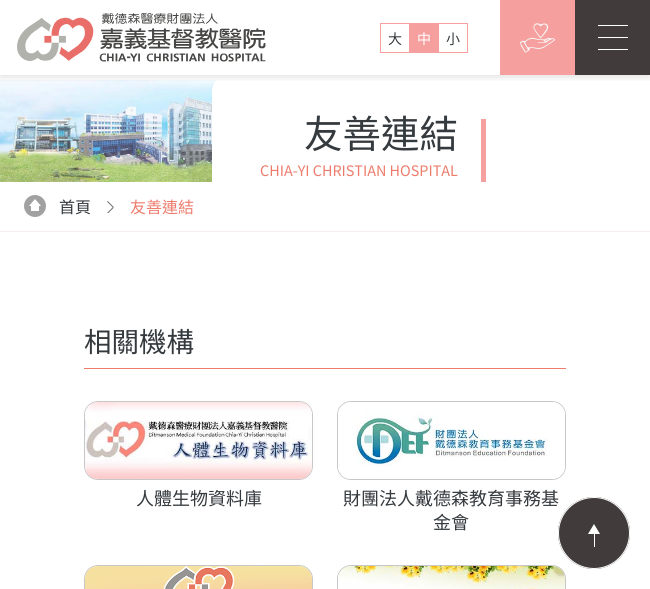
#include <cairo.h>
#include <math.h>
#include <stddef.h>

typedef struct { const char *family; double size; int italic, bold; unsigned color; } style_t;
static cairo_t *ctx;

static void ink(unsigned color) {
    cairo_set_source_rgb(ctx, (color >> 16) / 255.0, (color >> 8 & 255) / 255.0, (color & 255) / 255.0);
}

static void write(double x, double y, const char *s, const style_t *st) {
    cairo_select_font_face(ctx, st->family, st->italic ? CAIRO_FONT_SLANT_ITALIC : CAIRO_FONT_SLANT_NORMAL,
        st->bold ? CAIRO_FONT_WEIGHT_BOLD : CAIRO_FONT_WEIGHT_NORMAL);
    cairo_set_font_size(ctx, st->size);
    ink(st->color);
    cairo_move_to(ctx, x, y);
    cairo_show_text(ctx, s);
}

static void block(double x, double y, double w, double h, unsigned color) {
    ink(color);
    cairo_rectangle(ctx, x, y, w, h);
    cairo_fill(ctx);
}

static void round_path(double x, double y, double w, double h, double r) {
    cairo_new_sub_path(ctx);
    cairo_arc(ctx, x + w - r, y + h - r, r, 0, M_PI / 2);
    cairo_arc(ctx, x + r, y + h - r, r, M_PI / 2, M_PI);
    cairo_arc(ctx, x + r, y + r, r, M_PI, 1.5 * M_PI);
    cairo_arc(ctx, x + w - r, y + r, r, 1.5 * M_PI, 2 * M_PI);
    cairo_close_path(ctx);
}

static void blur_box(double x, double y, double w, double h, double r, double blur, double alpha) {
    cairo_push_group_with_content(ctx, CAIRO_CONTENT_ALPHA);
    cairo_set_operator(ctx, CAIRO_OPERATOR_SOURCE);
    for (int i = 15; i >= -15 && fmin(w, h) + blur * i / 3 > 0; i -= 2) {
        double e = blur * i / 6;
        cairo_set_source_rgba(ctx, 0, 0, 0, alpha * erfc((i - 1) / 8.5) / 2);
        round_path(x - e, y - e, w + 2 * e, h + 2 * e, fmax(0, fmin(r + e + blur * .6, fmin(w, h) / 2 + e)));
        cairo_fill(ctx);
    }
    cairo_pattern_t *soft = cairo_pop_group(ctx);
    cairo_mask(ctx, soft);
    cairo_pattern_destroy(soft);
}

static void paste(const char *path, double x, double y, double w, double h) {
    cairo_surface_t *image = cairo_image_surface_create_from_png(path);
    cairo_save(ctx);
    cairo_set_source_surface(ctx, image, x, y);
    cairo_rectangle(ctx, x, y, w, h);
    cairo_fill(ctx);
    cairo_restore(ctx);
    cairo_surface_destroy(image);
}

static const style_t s1 = {"Noto Sans TC", 14, 0, 0, 0x353a3e};
static const style_t s2 = {"Noto Sans TC", 14, 0, 0, 0xffffff};
static const style_t s3 = {"Noto Sans TC", 38.5, 0, 0, 0x353a3e};
static const style_t s4 = {"Noto Sans TC", 14.4, 0, 0, 0xed7c6d};
static const style_t s5 = {"Noto Sans TC", 16, 0, 0, 0x353a3e};
static const style_t s6 = {"Noto Sans TC", 16, 0, 0, 0xed7c6d};
static const style_t s7 = {"Noto Sans TC", 27.5, 0, 0, 0x353a3e};
static const style_t s8 = {"Noto Sans TC", 18, 0, 0, 0x353a3e};

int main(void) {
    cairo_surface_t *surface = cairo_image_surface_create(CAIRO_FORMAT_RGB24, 650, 589);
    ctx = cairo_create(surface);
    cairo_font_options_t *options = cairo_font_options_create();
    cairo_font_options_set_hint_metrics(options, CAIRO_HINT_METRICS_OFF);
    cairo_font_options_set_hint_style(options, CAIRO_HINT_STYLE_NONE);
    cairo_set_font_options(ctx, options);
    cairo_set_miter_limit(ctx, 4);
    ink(0xffffff);
    cairo_paint(ctx);
    paste("pic3.png", 0, 80, 217, 102);
    ink(0xffffff);
    cairo_new_path(ctx);
    cairo_move_to(ctx, 227, 76);
    cairo_line_to(ctx, 650, 76);
    cairo_line_to(ctx, 650, 182);
    cairo_line_to(ctx, 212, 182);
    cairo_line_to(ctx, 212, 91);
    cairo_curve_to(ctx, 212, 82.5, 218.5, 76, 227, 76);
    cairo_close_path(ctx);
    cairo_fill(ctx);
    cairo_save(ctx);
    cairo_rectangle(ctx, 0, 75, 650, 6);
    cairo_clip(ctx);
    ink(0x000000);
    blur_box(0, 3, 650, 75, 0, 3, 0.1);
    cairo_restore(ctx);
    paste("pic1.png", 17, 13, 249, 49);
    cairo_rectangle(ctx, 380.5, 23.5, 29, 29);
    ink(0xf69f9f);
    cairo_set_line_width(ctx, 1);
    cairo_stroke(ctx);
    write(388, 44, "大", &s1);
    block(410, 23, 28, 30, 0xf69f9f);
    write(417, 44, "中", &s2);
    cairo_rectangle(ctx, 438.5, 23.5, 29, 29);
    ink(0xf69f9f);
    cairo_stroke(ctx);
    write(446, 44, "小", &s1);
    block(500, 0, 75, 75, 0xf69f9f);
    paste("pic2.png", 520, 23, 35, 30);
    block(575, 0, 75, 75, 0x413b3b);
    block(598, 25, 30, 1, 0xffffff);
    block(598, 37, 30, 1, 0xffffff);
    block(598, 49, 30, 1, 0xffffff);
    block(481, 119, 5, 63, 0xf69f9f);
    write(304, 148, "友善連結", &s3);
    write(260, 176, "CHIA-YI CHRISTIAN HOSPITAL", &s4);
    block(0, 231, 650, 1, 0xf6eded);
    paste("pic4.png", 24, 195, 22, 22);
    write(59, 213, "首頁", &s5);
    paste("pic5.png", 107, 201, 7, 12);
    write(130, 213, "友善連結", &s6);
    block(84, 368, 482, 1, 0xed7c6d);
    write(84, 352, "相關機構", &s7);
    round_path(84.5, 401.5, 228, 78, 13.5);
    ink(0xc7c7c7);
    cairo_stroke(ctx);
    paste("pic6.png", 85, 402, 227, 77);
    write(136, 505, "人體生物資料庫", &s8);
    round_path(337.5, 401.5, 228, 78, 13.5);
    ink(0xc7c7c7);
    cairo_stroke(ctx);
    paste("pic7.png", 338, 402, 227, 77);
    write(343, 505, "財團法人戴德森教育事務基", &s8);
    write(433, 529, "金會", &s8);
    round_path(84.5, 565.5, 228, 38, 13.5);
    ink(0xc7c7c7);
    cairo_stroke(ctx);
    paste("pic8.png", 85, 566, 227, 23);
    round_path(337.5, 565.5, 228, 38, 13.5);
    cairo_stroke(ctx);
    paste("pic9.png", 338, 566, 227, 23);
    ink(0x413b3b);
    cairo_arc(ctx, 594, 533, 36, 0, 2 * M_PI);
    cairo_fill(ctx);
    cairo_save(ctx);
    round_path(558, 497, 72, 72, 36);
    cairo_clip(ctx);
    cairo_arc(ctx, 594, 533, 35.5, 0, 2 * M_PI);
    ink(0xffffff);
    cairo_stroke(ctx);
    cairo_restore(ctx);
    ink(0xffffff);
    cairo_new_path(ctx);
    cairo_move_to(ctx, 594, 524);
    cairo_line_to(ctx, 600, 534);
    cairo_line_to(ctx, 588, 534);
    cairo_close_path(ctx);
    cairo_fill(ctx);
    block(594, 532, 1, 15, 0xffffff);
    cairo_surface_write_to_png(surface, "screenshot.png");
    cairo_font_options_destroy(options);
    cairo_destroy(ctx);
    cairo_surface_destroy(surface);
    return 0;
}
